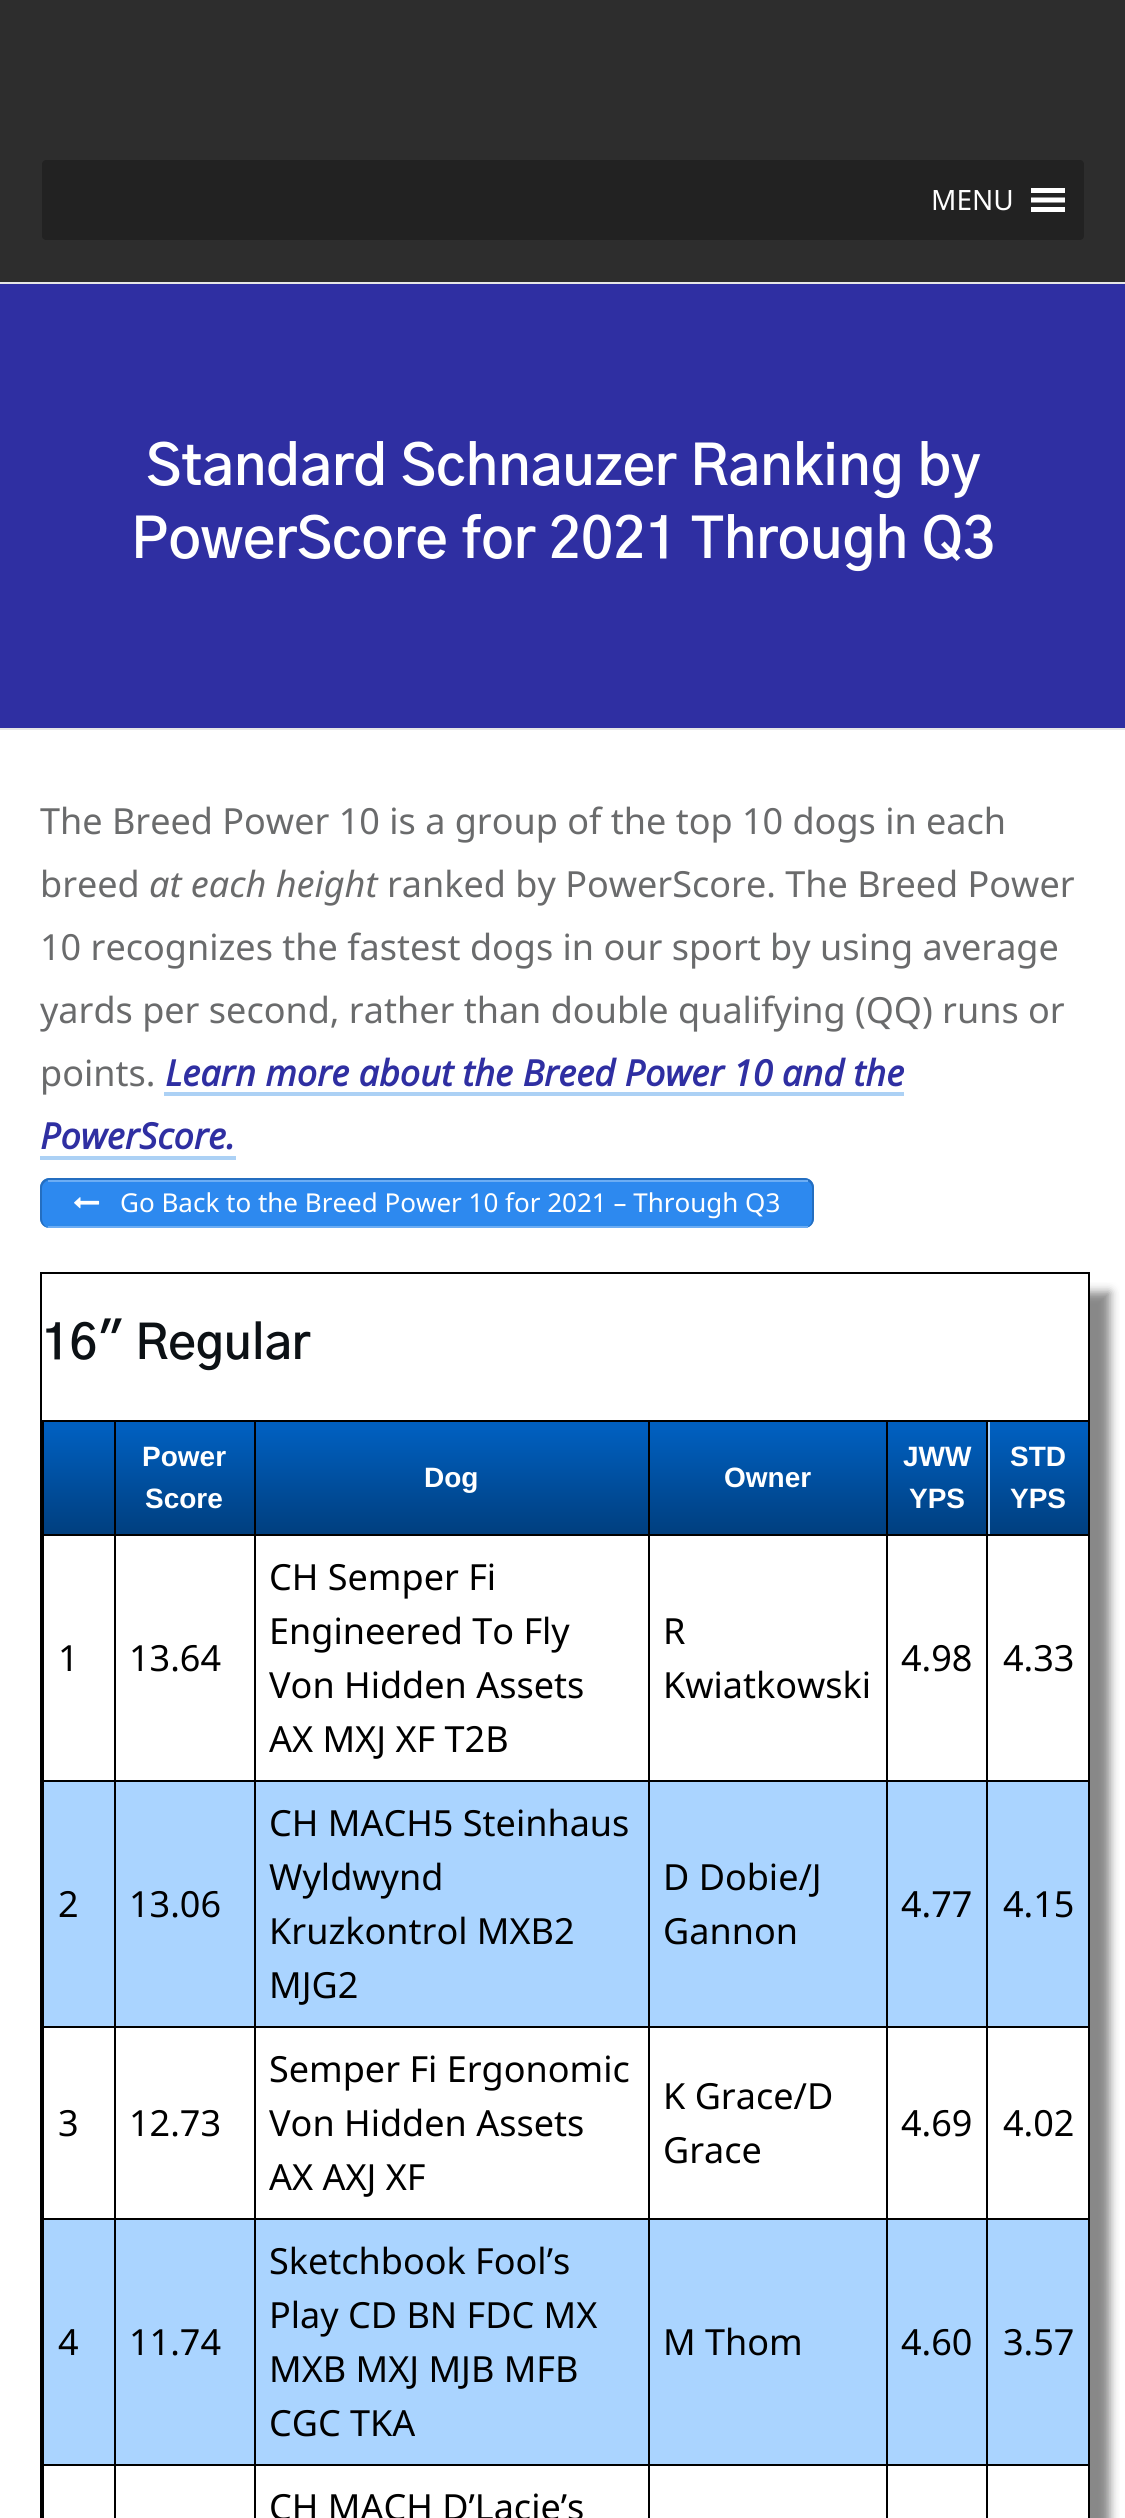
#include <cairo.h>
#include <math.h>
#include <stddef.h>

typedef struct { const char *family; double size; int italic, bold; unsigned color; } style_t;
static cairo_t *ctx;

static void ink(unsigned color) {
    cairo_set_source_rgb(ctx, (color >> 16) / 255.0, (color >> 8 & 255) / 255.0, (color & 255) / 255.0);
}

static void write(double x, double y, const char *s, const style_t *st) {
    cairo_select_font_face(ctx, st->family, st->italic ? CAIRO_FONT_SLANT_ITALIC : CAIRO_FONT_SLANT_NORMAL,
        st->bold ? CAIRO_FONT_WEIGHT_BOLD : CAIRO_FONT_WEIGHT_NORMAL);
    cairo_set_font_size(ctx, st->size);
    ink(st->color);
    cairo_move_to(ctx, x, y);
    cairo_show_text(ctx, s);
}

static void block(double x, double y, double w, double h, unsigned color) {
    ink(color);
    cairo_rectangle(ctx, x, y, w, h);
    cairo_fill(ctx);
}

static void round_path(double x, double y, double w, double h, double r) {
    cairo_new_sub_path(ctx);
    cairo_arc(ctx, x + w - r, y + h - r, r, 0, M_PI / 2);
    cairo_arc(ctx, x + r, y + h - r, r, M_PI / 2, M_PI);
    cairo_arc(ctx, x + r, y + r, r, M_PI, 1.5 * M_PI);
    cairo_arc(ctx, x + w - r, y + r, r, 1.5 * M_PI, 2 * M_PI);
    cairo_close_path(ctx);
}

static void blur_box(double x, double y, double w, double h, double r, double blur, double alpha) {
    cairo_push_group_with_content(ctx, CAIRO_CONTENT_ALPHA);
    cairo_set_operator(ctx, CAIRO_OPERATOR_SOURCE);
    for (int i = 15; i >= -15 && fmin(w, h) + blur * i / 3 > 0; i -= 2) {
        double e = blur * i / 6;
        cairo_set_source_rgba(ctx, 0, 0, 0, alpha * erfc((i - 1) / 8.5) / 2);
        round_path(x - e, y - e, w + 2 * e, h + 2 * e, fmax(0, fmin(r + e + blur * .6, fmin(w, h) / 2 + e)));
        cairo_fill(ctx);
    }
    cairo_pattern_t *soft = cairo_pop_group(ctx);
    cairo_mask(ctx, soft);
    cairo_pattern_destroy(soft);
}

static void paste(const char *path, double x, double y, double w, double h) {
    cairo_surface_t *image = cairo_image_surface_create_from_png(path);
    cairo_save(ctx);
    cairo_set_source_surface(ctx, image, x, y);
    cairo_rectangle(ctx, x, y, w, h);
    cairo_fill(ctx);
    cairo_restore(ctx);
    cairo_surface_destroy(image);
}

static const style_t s1 = {"Noto Sans", 28, 0, 0, 0xffffff};
static const style_t s2 = {"Gothic A1 SemiBold", 56, 0, 0, 0xffffff};
static const style_t s3 = {"Noto Sans", 36, 0, 0, 0x6a6b6c};
static const style_t s4 = {"Noto Sans", 36, 1, 0, 0x6a6b6c};
static const style_t s5 = {"Noto Sans", 36, 1, 1, 0x2f2fa2};
static const style_t s6 = {"Noto Sans", 26, 0, 0, 0xffffff};
static const style_t s7 = {"Gothic A1 SemiBold", 48, 0, 0, 0x0c1115};
static const style_t s8 = {"Liberation Sans", 28, 0, 1, 0xffffff};
static const style_t s9 = {"Noto Sans", 36, 0, 0, 0x000000};

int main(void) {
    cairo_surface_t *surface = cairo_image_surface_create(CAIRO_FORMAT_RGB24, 1125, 2518);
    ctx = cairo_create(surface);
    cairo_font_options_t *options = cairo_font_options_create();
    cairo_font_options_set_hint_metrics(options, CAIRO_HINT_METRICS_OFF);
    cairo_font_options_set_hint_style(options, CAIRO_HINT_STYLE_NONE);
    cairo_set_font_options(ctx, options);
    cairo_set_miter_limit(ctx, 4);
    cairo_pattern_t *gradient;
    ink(0xffffff);
    cairo_paint(ctx);
    block(0, 0, 1125, 282, 0x2d2d2d);
    ink(0x222222);
    round_path(42, 160, 1042, 80, 4);
    cairo_fill(ctx);
    write(931, 210, "MENU", &s1);
    cairo_new_path(ctx);
    cairo_move_to(ctx, 1031, 212);
    cairo_line_to(ctx, 1065, 212);
    cairo_line_to(ctx, 1065, 207);
    cairo_line_to(ctx, 1031, 207);
    cairo_close_path(ctx);
    cairo_move_to(ctx, 1031, 188);
    cairo_line_to(ctx, 1031, 193);
    cairo_line_to(ctx, 1065, 193);
    cairo_line_to(ctx, 1065, 188);
    cairo_close_path(ctx);
    cairo_move_to(ctx, 1031, 202.5);
    cairo_line_to(ctx, 1065, 202.5);
    cairo_line_to(ctx, 1065, 197.5);
    cairo_line_to(ctx, 1031, 197.5);
    cairo_close_path(ctx);
    cairo_fill(ctx);
    block(0, 284, 1125, 444, 0x2f2fa2);
    block(0, 282, 1125, 2, 0xe6e6e6);
    block(0, 728, 1125, 2, 0xe6e6e6);
    write(146, 485, "Standard Schnauzer Ranking by", &s2);
    write(131, 558, "PowerScore for 2021 Through Q3", &s2);
    write(40, 834, "The Breed Power 10 is a group of the top 10 dogs in each", &s3);
    write(40, 897, "breed", &s3);
    write(149, 897, "at each height", &s4);
    write(387, 897, "ranked by PowerScore. The Breed Power", &s3);
    write(40, 960, "10 recognizes the fastest dogs in our sport by using average", &s3);
    write(40, 1023, "yards per second, rather than double qualifying (QQ) runs or", &s3);
    write(40, 1086, "points.", &s3);
    write(165, 1086, "Learn more about the Breed Power 10 and the", &s5);
    block(164, 1092, 740, 4, 0xacd1f5);
    write(40, 1149, "PowerScore.", &s5);
    block(40, 1156, 196, 4, 0xacd1f5);
    ink(0x2d89ef);
    round_path(40, 1178, 774, 50, 10);
    cairo_fill(ctx);
    cairo_save(ctx);
    round_path(40, 1178, 774, 50, 10);
    cairo_clip(ctx);
    cairo_set_source_rgba(ctx, 0.184, 0.545, 0.906, 0.4);
    cairo_rectangle(ctx, 40, 1224, 774, 4);
    cairo_fill(ctx);
    cairo_restore(ctx);
    ink(0x246ec0);
    cairo_set_fill_rule(ctx, CAIRO_FILL_RULE_EVEN_ODD);
    cairo_new_path(ctx);
    cairo_move_to(ctx, 50, 1178);
    cairo_line_to(ctx, 804, 1178);
    cairo_curve_to(ctx, 810, 1178, 814, 1182, 814, 1188);
    cairo_line_to(ctx, 814, 1218);
    cairo_curve_to(ctx, 814, 1224, 810, 1228, 804, 1228);
    cairo_line_to(ctx, 50, 1228);
    cairo_curve_to(ctx, 44, 1228, 40, 1224, 40, 1218);
    cairo_line_to(ctx, 40, 1188);
    cairo_curve_to(ctx, 40, 1182, 44, 1178, 50, 1178);
    cairo_close_path(ctx);
    cairo_move_to(ctx, 50, 1180);
    cairo_line_to(ctx, 804, 1180);
    cairo_curve_to(ctx, 808, 1180, 812, 1184, 812, 1188);
    cairo_line_to(ctx, 812, 1218);
    cairo_curve_to(ctx, 812, 1224, 808, 1228, 804, 1228);
    cairo_line_to(ctx, 50, 1228);
    cairo_curve_to(ctx, 46, 1228, 42, 1224, 42, 1218);
    cairo_line_to(ctx, 42, 1188);
    cairo_curve_to(ctx, 42, 1184, 46, 1180, 50, 1180);
    cairo_close_path(ctx);
    cairo_fill(ctx);
    block(48, 1180, 760, 2, 0x6cadf4);
    block(48, 1226, 760, 2, 0x6cadf4);
    paste("pic1.png", 74, 1197, 26, 12);
    write(120, 1212, "Go Back to the Breed Power 10 for 2021 – Through Q3", &s6);
    cairo_save(ctx);
    cairo_set_fill_rule(ctx, CAIRO_FILL_RULE_WINDING);
    cairo_rectangle(ctx, 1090, 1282, 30, 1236);
    cairo_clip(ctx);
    ink(0x888888);
    blur_box(60, 1292, 1050, 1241, 0, 5, 1);
    cairo_restore(ctx);
    cairo_rectangle(ctx, 41, 1273, 1048, 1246);
    ink(0x000000);
    cairo_stroke(ctx);
    write(42, 1359, "16″ Regular", &s7);
    block(42, 1420, 1048, 2, 0x000000);
    block(42, 1420, 2, 1098, 0x000000);
    block(988, 1422, 2, 112, 0xaad4ff);
    gradient = cairo_pattern_create_linear(44, 1422, 44, 1534);
    cairo_pattern_add_color_stop_rgba(gradient, 0.05, 0, 0.373, 0.749, 1);
    cairo_pattern_add_color_stop_rgba(gradient, 1, 0, 0.247, 0.498, 1);
    cairo_set_source(ctx, gradient);
    cairo_pattern_destroy(gradient);
    cairo_rectangle(ctx, 44, 1422, 70, 112);
    cairo_fill(ctx);
    block(44, 1782, 1044, 244, 0xaad4ff);
    block(44, 2220, 1044, 244, 0xaad4ff);
    block(986, 2464, 2, 54, 0x000000);
    block(986, 2464, 104, 2, 0x000000);
    block(986, 2218, 2, 248, 0x000000);
    block(986, 2218, 104, 2, 0x000000);
    block(986, 2026, 2, 194, 0x000000);
    block(986, 2026, 104, 2, 0x000000);
    block(986, 1780, 2, 248, 0x000000);
    block(986, 1780, 104, 2, 0x000000);
    block(986, 1534, 2, 248, 0x000000);
    block(986, 1534, 104, 2, 0x000000);
    block(986, 1420, 2, 116, 0x000000);
    block(886, 2464, 2, 54, 0x000000);
    block(886, 2464, 102, 2, 0x000000);
    block(886, 2218, 2, 248, 0x000000);
    block(886, 2218, 102, 2, 0x000000);
    block(886, 2026, 2, 194, 0x000000);
    block(886, 2026, 102, 2, 0x000000);
    block(886, 1780, 2, 248, 0x000000);
    block(886, 1780, 102, 2, 0x000000);
    block(886, 1534, 2, 248, 0x000000);
    block(886, 1534, 102, 2, 0x000000);
    block(886, 1420, 2, 116, 0x000000);
    block(648, 2464, 2, 54, 0x000000);
    block(648, 2464, 240, 2, 0x000000);
    block(648, 2218, 2, 248, 0x000000);
    block(648, 2218, 240, 2, 0x000000);
    block(648, 2026, 2, 194, 0x000000);
    block(648, 2026, 240, 2, 0x000000);
    block(648, 1780, 2, 248, 0x000000);
    block(648, 1780, 240, 2, 0x000000);
    block(648, 1534, 2, 248, 0x000000);
    block(648, 1534, 240, 2, 0x000000);
    block(648, 1420, 2, 116, 0x000000);
    block(254, 2464, 2, 54, 0x000000);
    block(254, 2464, 396, 2, 0x000000);
    block(254, 2218, 2, 248, 0x000000);
    block(254, 2218, 396, 2, 0x000000);
    block(254, 2026, 2, 194, 0x000000);
    block(254, 2026, 396, 2, 0x000000);
    block(254, 1780, 2, 248, 0x000000);
    block(254, 1780, 396, 2, 0x000000);
    block(254, 1534, 2, 248, 0x000000);
    block(254, 1534, 396, 2, 0x000000);
    block(254, 1420, 2, 116, 0x000000);
    block(114, 2464, 2, 54, 0x000000);
    block(114, 2464, 142, 2, 0x000000);
    block(114, 2218, 2, 248, 0x000000);
    block(114, 2218, 142, 2, 0x000000);
    block(114, 2026, 2, 194, 0x000000);
    block(114, 2026, 142, 2, 0x000000);
    block(114, 1780, 2, 248, 0x000000);
    block(114, 1780, 142, 2, 0x000000);
    block(114, 1534, 2, 248, 0x000000);
    block(114, 1534, 142, 2, 0x000000);
    block(114, 1420, 2, 116, 0x000000);
    block(42, 1534, 74, 2, 0x000000);
    gradient = cairo_pattern_create_linear(116, 1422, 116, 1534);
    cairo_pattern_add_color_stop_rgba(gradient, 0.05, 0, 0.373, 0.749, 1);
    cairo_pattern_add_color_stop_rgba(gradient, 1, 0, 0.247, 0.498, 1);
    cairo_set_source(ctx, gradient);
    cairo_pattern_destroy(gradient);
    cairo_rectangle(ctx, 116, 1422, 138, 112);
    cairo_fill(ctx);
    write(142, 1466, "Power", &s8);
    write(145, 1508, "Score", &s8);
    gradient = cairo_pattern_create_linear(256, 1422, 256, 1534);
    cairo_pattern_add_color_stop_rgba(gradient, 0.05, 0, 0.373, 0.749, 1);
    cairo_pattern_add_color_stop_rgba(gradient, 1, 0, 0.247, 0.498, 1);
    cairo_set_source(ctx, gradient);
    cairo_pattern_destroy(gradient);
    cairo_rectangle(ctx, 256, 1422, 392, 112);
    cairo_fill(ctx);
    write(424, 1487, "Dog", &s8);
    gradient = cairo_pattern_create_linear(650, 1422, 650, 1534);
    cairo_pattern_add_color_stop_rgba(gradient, 0.05, 0, 0.373, 0.749, 1);
    cairo_pattern_add_color_stop_rgba(gradient, 1, 0, 0.247, 0.498, 1);
    cairo_set_source(ctx, gradient);
    cairo_pattern_destroy(gradient);
    cairo_rectangle(ctx, 650, 1422, 236, 112);
    cairo_fill(ctx);
    write(724, 1487, "Owner", &s8);
    gradient = cairo_pattern_create_linear(888, 1422, 888, 1534);
    cairo_pattern_add_color_stop_rgba(gradient, 0.05, 0, 0.373, 0.749, 1);
    cairo_pattern_add_color_stop_rgba(gradient, 1, 0, 0.247, 0.498, 1);
    cairo_set_source(ctx, gradient);
    cairo_pattern_destroy(gradient);
    cairo_rectangle(ctx, 888, 1422, 98, 112);
    cairo_fill(ctx);
    write(903, 1466, "JWW", &s8);
    write(909, 1508, "YPS", &s8);
    gradient = cairo_pattern_create_linear(990, 1422, 990, 1534);
    cairo_pattern_add_color_stop_rgba(gradient, 0.05, 0, 0.373, 0.749, 1);
    cairo_pattern_add_color_stop_rgba(gradient, 1, 0, 0.247, 0.498, 1);
    cairo_set_source(ctx, gradient);
    cairo_pattern_destroy(gradient);
    cairo_rectangle(ctx, 990, 1422, 98, 112);
    cairo_fill(ctx);
    write(1010, 1466, "STD", &s8);
    write(1010, 1508, "YPS", &s8);
    block(42, 1780, 74, 2, 0x000000);
    write(58, 1671, "1", &s9);
    write(129, 1671, "13.64", &s9);
    write(269, 1590, "CH Semper Fi", &s9);
    write(269, 1644, "Engineered To Fly", &s9);
    write(269, 1698, "Von Hidden Assets", &s9);
    write(269, 1752, "AX MXJ XF T2B", &s9);
    write(663, 1644, "R", &s9);
    write(663, 1698, "Kwiatkowski", &s9);
    write(901, 1671, "4.98", &s9);
    write(1003, 1671, "4.33", &s9);
    block(42, 2026, 74, 2, 0x000000);
    write(58, 1917, "2", &s9);
    write(129, 1917, "13.06", &s9);
    write(269, 1836, "CH MACH5 Steinhaus", &s9);
    write(269, 1890, "Wyldwynd", &s9);
    write(269, 1944, "Kruzkontrol MXB2", &s9);
    write(269, 1998, "MJG2", &s9);
    write(663, 1890, "D Dobie/J", &s9);
    write(663, 1944, "Gannon", &s9);
    write(901, 1917, "4.77", &s9);
    write(1003, 1917, "4.15", &s9);
    block(42, 2218, 74, 2, 0x000000);
    write(58, 2136, "3", &s9);
    write(129, 2136, "12.73", &s9);
    write(269, 2082, "Semper Fi Ergonomic", &s9);
    write(269, 2136, "Von Hidden Assets", &s9);
    write(269, 2190, "AX AXJ XF", &s9);
    write(663, 2109, "K Grace/D", &s9);
    write(663, 2163, "Grace", &s9);
    write(901, 2136, "4.69", &s9);
    write(1003, 2136, "4.02", &s9);
    block(42, 2464, 74, 2, 0x000000);
    write(58, 2355, "4", &s9);
    write(129, 2355, "11.74", &s9);
    write(269, 2274, "Sketchbook Fool’s", &s9);
    write(269, 2328, "Play CD BN FDC MX", &s9);
    write(269, 2382, "MXB MXJ MJB MFB", &s9);
    write(269, 2436, "CGC TKA", &s9);
    write(663, 2355, "M Thom", &s9);
    write(901, 2355, "4.60", &s9);
    write(1003, 2355, "3.57", &s9);
    write(269, 2520, "CH MACH D’Lacie’s", &s9);
    cairo_surface_write_to_png(surface, "screenshot.png");
    cairo_font_options_destroy(options);
    cairo_destroy(ctx);
    cairo_surface_destroy(surface);
    return 0;
}
